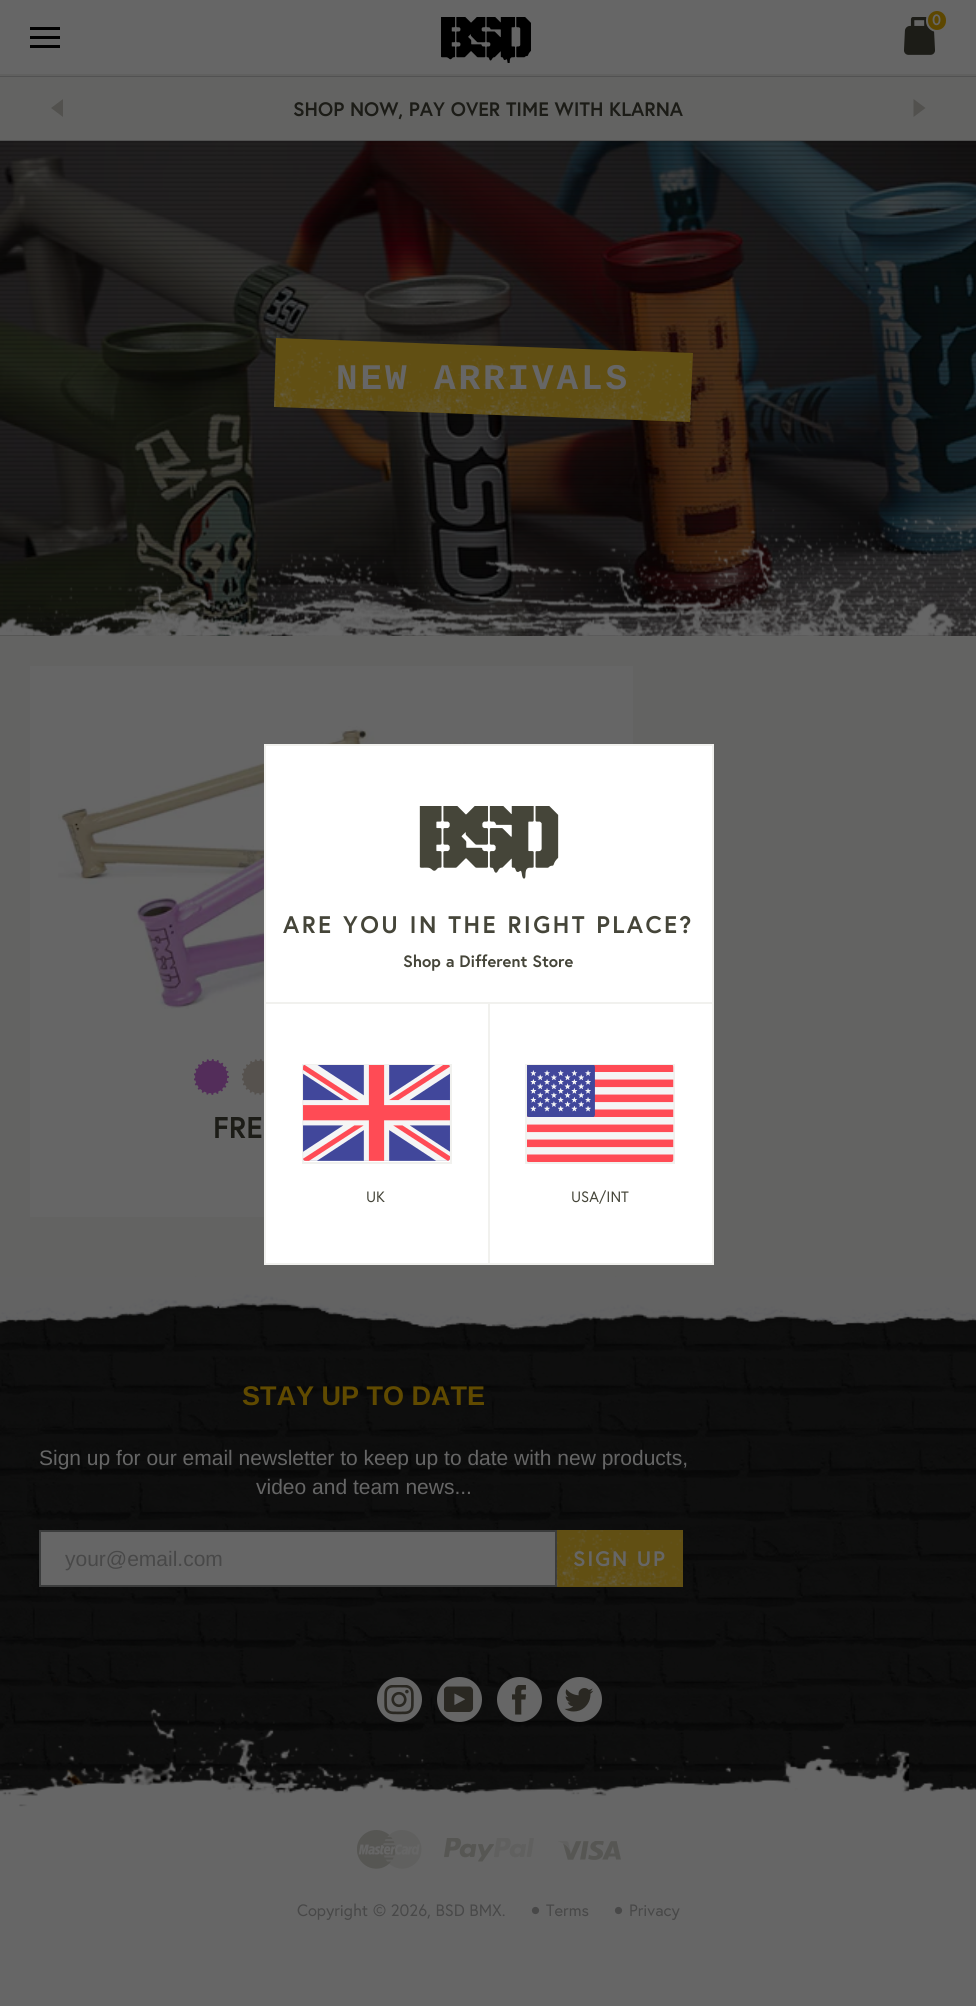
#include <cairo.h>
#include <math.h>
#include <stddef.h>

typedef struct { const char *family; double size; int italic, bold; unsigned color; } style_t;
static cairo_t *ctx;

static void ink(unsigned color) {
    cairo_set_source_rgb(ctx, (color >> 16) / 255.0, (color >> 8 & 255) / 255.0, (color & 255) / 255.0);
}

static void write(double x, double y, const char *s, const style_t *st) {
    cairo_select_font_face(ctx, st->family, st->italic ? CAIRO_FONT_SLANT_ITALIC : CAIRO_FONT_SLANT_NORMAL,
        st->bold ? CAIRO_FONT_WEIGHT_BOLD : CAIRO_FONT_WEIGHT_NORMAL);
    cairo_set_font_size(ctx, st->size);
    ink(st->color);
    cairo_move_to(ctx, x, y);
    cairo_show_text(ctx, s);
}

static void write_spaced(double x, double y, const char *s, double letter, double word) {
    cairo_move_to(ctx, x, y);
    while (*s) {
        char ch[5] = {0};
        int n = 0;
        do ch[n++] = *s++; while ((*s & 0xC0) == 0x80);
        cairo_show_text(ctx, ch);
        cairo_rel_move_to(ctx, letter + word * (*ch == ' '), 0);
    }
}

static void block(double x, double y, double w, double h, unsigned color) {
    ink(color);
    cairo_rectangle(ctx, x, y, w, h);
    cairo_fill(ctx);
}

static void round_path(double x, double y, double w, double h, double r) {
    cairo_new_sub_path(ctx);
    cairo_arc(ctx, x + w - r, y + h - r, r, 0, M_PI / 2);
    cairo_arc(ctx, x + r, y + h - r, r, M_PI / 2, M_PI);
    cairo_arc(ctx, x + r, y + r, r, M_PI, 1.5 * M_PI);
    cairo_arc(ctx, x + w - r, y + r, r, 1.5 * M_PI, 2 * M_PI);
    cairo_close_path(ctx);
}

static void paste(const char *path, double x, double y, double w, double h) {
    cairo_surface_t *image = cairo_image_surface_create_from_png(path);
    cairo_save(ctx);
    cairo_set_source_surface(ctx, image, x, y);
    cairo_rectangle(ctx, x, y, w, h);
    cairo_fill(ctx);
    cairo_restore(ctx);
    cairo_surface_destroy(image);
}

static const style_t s1 = {"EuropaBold", 15, 0, 1, 0x666666};
static const style_t s2 = {"EuropaBold", 19.5, 0, 1, 0x1c1c17};
static const style_t s3 = {"EuropaBold", 30, 0, 1, 0x1c1c17};
static const style_t s4 = {"Liberation Sans", 27, 0, 1, 0x604a00};
static const style_t s5 = {"Liberation Sans", 21, 0, 0, 0x666666};
static const style_t s6 = {"Liberation Sans", 21, 0, 0, 0x484848};
static const style_t s7 = {"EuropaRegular", 16.5, 0, 0, 0x484848};
static const style_t s8 = {"EuropaRegular", 30, 0, 0, 0x484848};
static const style_t s9 = {"EuropaBold", 16.5, 0, 1, 0x454539};
static const style_t s10 = {"EuropaRegular", 15, 0, 0, 0x454539};

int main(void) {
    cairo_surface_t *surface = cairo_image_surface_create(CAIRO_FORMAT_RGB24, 976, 2006);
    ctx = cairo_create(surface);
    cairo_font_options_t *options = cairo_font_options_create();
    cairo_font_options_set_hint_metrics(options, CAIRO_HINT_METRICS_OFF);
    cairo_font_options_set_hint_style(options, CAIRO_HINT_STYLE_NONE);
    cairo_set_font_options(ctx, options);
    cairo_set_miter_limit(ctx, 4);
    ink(0x666666);
    cairo_paint(ctx);
    block(0, 77, 976, 1200, 0x636362);
    block(0, 74, 976, 2, 0x60605f);
    block(30, 27, 30, 3, 0x000000);
    block(30, 36, 30, 3, 0x000000);
    block(30, 45, 30, 3, 0x000000);
    paste("pic1.png", 441, 17, 90, 46);
    paste("pic2.png", 904, 17, 31, 38);
    ink(0x5d4700);
    round_path(927, 10, 20, 21, 10);
    cairo_fill_preserve(ctx);
    ink(0x666666);
    cairo_stroke(ctx);
    write(932, 25, "0", &s1);
    block(0, 76, 976, 1, 0x525252);
    block(0, 140, 976, 1, 0x525252);
    ink(0x52514e);
    cairo_new_path(ctx);
    cairo_move_to(ctx, 63, 99);
    cairo_line_to(ctx, 63, 117);
    cairo_line_to(ctx, 51, 108);
    cairo_close_path(ctx);
    cairo_fill(ctx);
    write(293, 116, "SHOP NOW, PAY OVER TIME WITH KLARNA", &s2);
    ink(0x52514e);
    cairo_new_path(ctx);
    cairo_move_to(ctx, 913.5, 117);
    cairo_line_to(ctx, 913.5, 99);
    cairo_line_to(ctx, 925.5, 108);
    cairo_close_path(ctx);
    cairo_fill(ctx);
    paste("pic3.png", 0, 141, 976, 495);
    paste("pic4.png", 0, 141, 976, 493);
    ink(0x614f13);
    cairo_new_path(ctx);
    cairo_move_to(ctx, 276, 338);
    cairo_line_to(ctx, 693, 353);
    cairo_line_to(ctx, 690, 422);
    cairo_line_to(ctx, 274, 407);
    cairo_close_path(ctx);
    cairo_fill(ctx);
    paste("pic5.png", 274, 345, 418, 77);
    cairo_select_font_face(ctx, "Liberation Mono", CAIRO_FONT_SLANT_NORMAL, CAIRO_FONT_WEIGHT_BOLD);
    cairo_set_font_size(ctx, 36);
    ink(0x666666);
    write_spaced(336, 389, "NEW ARRIVALS", 2.9, 0);
    paste("pic6.png", 0, 509, 976, 127);
    block(30, 666, 603, 551, 0x666666);
    paste("pic7.png", 58, 726, 554, 283);
    paste("pic8.png", 194, 1059, 35, 36);
    paste("pic9.png", 242, 1059, 22, 36);
    write(213, 1138, "FRE", &s3);
    block(0, 1303, 976, 504, 0x000000);
    paste("pic10.png", 0, 1276, 976, 536);
    write(242, 1405, "STAY UP TO DATE", &s4);
    write(39, 1465, "Sign up for our email newsletter to keep up to date with new products,", &s5);
    write(256, 1494, "video and team news...", &s5);
    cairo_rectangle(ctx, 40, 1531, 516, 55);
    cairo_fill_preserve(ctx);
    ink(0x3b3c3c);
    cairo_stroke(ctx);
    write(65, 1566, "your@email.com", &s6);
    block(557, 1530, 126, 57, 0x614f13);
    paste("pic11.png", 556, 1530, 127, 56);
    cairo_select_font_face(ctx, "EuropaBold", CAIRO_FONT_SLANT_NORMAL, CAIRO_FONT_WEIGHT_BOLD);
    ink(0x666666);
    write_spaced(573, 1566, "SIGN UP", 1.75, 0);
    cairo_new_path(ctx);
    cairo_arc(ctx, 399.5, 1699.5, 22.5, 0, 2 * M_PI);
    cairo_fill(ctx);
    paste("pic12.png", 384, 1685, 30, 30);
    cairo_arc(ctx, 459.5, 1699.5, 22.5, 0, 2 * M_PI);
    cairo_fill(ctx);
    paste("pic13.png", 444, 1686, 30, 26);
    cairo_arc(ctx, 519.5, 1699.5, 22.5, 0, 2 * M_PI);
    cairo_fill(ctx);
    paste("pic14.png", 512, 1685, 14, 30);
    cairo_arc(ctx, 579.5, 1699.5, 22.5, 0, 2 * M_PI);
    cairo_fill(ctx);
    paste("pic15.png", 564, 1688, 30, 24);
    paste("pic16.png", 357, 1830, 65, 39);
    paste("pic17.png", 444, 1838, 90, 24);
    paste("pic18.png", 558, 1841, 63, 19);
    write(297, 1916, "Copyright © 2026, BSD BMX.", &s7);
    write(528, 1921, "•", &s8);
    write(546, 1916, "Terms", &s7);
    write(611, 1921, "•", &s8);
    write(629, 1916, "Privacy", &s7);
    ink(0xffffff);
    cairo_rectangle(ctx, 265, 745, 448, 519);
    cairo_fill_preserve(ctx);
    ink(0xf1f1ee);
    cairo_stroke(ctx);
    paste("pic19.png", 419, 806, 140, 73);
    cairo_select_font_face(ctx, "EuropaBold", CAIRO_FONT_SLANT_NORMAL, CAIRO_FONT_WEIGHT_BOLD);
    cairo_set_font_size(ctx, 24);
    ink(0x454539);
    write_spaced(283, 933, "ARE YOU IN THE RIGHT PLACE?", 2.4, 0);
    write(403, 967, "Shop a Different Store", &s9);
    block(266, 1002, 447, 2, 0xf1f1ee);
    block(488, 1004, 2, 259, 0xf1f1ee);
    cairo_rectangle(ctx, 303, 1065, 148, 98);
    cairo_stroke(ctx);
    paste("pic20.png", 303, 1065, 147, 96);
    write(366, 1202, "UK", &s10);
    cairo_rectangle(ctx, 526, 1065, 148, 98);
    ink(0xf1f1ee);
    cairo_stroke(ctx);
    paste("pic21.png", 527, 1065, 147, 97);
    write(571, 1202, "USA/INT", &s10);
    cairo_surface_write_to_png(surface, "screenshot.png");
    cairo_font_options_destroy(options);
    cairo_destroy(ctx);
    cairo_surface_destroy(surface);
    return 0;
}
